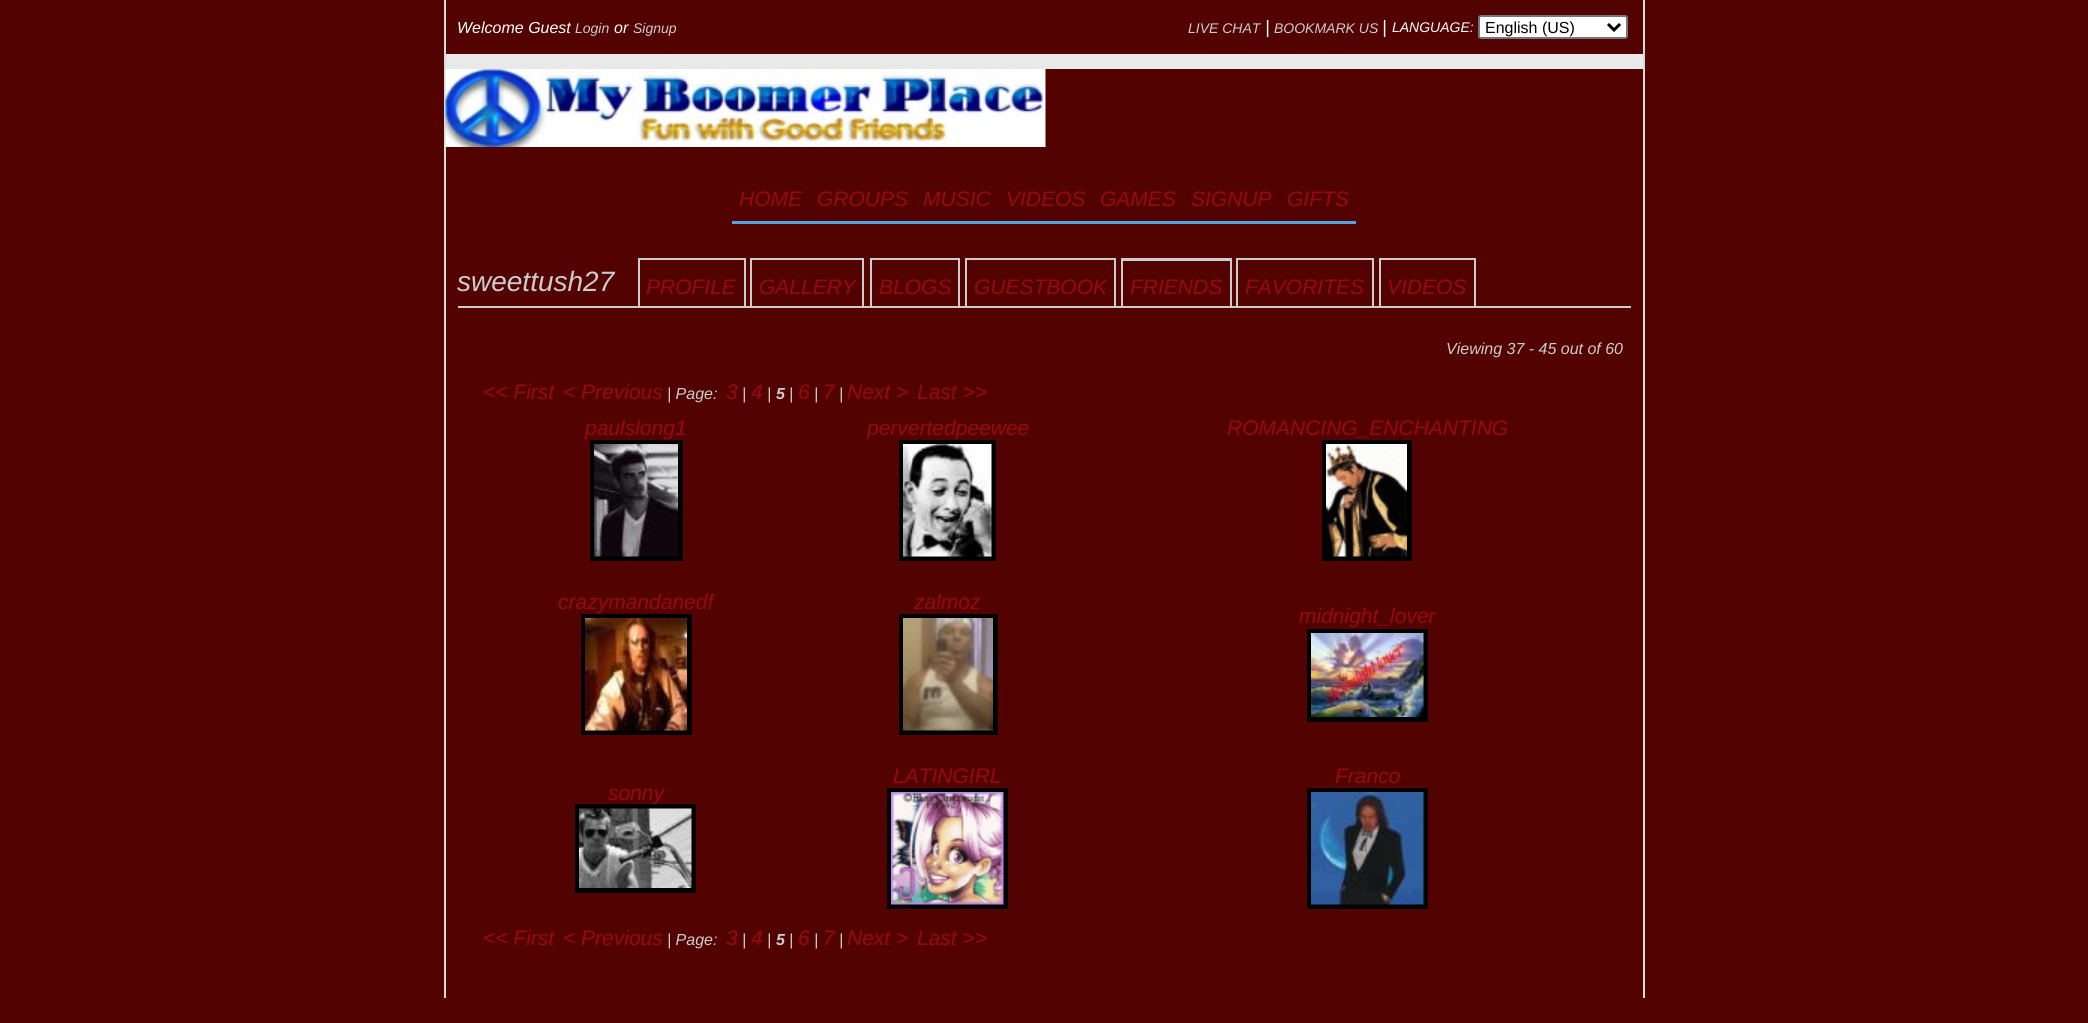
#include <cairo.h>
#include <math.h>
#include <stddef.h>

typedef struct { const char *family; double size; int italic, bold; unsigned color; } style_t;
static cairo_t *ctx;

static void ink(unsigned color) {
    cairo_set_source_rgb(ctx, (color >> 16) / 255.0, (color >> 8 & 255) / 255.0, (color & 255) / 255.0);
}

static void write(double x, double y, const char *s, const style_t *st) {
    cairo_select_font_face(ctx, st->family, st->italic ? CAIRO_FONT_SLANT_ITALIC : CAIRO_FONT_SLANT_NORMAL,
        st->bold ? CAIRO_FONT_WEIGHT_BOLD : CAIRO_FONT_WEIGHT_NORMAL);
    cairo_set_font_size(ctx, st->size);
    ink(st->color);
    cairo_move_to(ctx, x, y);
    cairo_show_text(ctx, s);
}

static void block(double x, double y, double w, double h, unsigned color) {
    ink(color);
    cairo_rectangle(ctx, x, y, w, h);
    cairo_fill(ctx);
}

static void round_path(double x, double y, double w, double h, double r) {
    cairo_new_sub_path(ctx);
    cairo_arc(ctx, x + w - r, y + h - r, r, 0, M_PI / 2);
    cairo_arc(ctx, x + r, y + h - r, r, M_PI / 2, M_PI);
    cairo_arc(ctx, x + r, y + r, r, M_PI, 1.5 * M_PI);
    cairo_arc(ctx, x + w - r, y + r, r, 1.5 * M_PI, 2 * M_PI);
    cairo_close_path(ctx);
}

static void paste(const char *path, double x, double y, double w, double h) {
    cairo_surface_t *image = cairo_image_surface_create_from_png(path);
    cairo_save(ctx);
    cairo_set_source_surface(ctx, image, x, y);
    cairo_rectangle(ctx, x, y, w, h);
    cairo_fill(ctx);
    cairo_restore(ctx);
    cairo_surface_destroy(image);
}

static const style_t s1 = {"Liberation Sans", 16, 1, 0, 0xffffff};
static const style_t s2 = {"Liberation Sans", 14, 1, 0, 0xcccccc};
static const style_t s3 = {"Liberation Sans", 18, 1, 0, 0xffffff};
static const style_t s4 = {"Liberation Sans", 14, 1, 0, 0xffffff};
static const style_t s5 = {"Liberation Sans", 16, 0, 0, 0x000000};
static const style_t s6 = {"Liberation Sans", 21, 1, 0, 0x960912};
static const style_t s7 = {"Liberation Sans", 28, 1, 0, 0xcccccc};
static const style_t s8 = {"Liberation Sans", 16, 1, 0, 0xcccccc};
static const style_t s9 = {"Liberation Sans", 16, 1, 1, 0xcccccc};

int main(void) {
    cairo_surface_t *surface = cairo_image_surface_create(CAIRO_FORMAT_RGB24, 2088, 1023);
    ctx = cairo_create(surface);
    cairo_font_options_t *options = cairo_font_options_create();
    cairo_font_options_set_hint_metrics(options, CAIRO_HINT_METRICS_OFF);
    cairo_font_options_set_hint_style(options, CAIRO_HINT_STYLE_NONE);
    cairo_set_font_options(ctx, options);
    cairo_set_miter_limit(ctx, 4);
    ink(0x530202);
    cairo_paint(ctx);
    block(1643, 0, 2, 998, 0xd9d9d9);
    block(444, 0, 2, 998, 0xd9d9d9);
    write(457, 33, "Welcome Guest", &s1);
    write(575, 33, "Login", &s2);
    write(614, 33, "or", &s1);
    write(633, 33, "Signup", &s2);
    write(1188, 33, "LIVE CHAT", &s2);
    write(1265, 33, "|", &s3);
    write(1274, 33, "BOOKMARK US", &s2);
    write(1382, 33, "|", &s3);
    write(1392, 32, "LANGUAGE:", &s4);
    round_path(1479, 16, 148, 22, 2);
    cairo_fill_preserve(ctx);
    ink(0x767676);
    cairo_stroke(ctx);
    cairo_new_path(ctx);
    cairo_move_to(ctx, 1608, 24);
    cairo_line_to(ctx, 1614, 30);
    cairo_line_to(ctx, 1620, 24);
    ink(0x000000);
    cairo_set_line_width(ctx, 3);
    cairo_stroke(ctx);
    write(1485, 33, "English (US)", &s5);
    block(446, 54, 1197, 15, 0xe9e9e9);
    paste("pic1.png", 445, 69, 601, 78);
    block(732, 221, 624, 3, 0x54a4de);
    write(739, 206, "HOME", &s6);
    write(817, 206, "GROUPS", &s6);
    write(923, 206, "MUSIC", &s6);
    write(1006, 206, "VIDEOS", &s6);
    write(1100, 206, "GAMES", &s6);
    write(1191, 206, "SIGNUP", &s6);
    write(1287, 206, "GIFTS", &s6);
    block(458, 306, 180, 2, 0xcccccc);
    write(457, 291, "sweettush27", &s7);
    cairo_rectangle(ctx, 639, 259, 106, 48);
    cairo_set_line_width(ctx, 2);
    cairo_stroke(ctx);
    write(646, 294, "PROFILE", &s6);
    block(746, 306, 5, 2, 0xcccccc);
    cairo_rectangle(ctx, 751, 259, 112, 48);
    cairo_stroke(ctx);
    write(759, 294, "GALLERY", &s6);
    cairo_rectangle(ctx, 871, 259, 88, 48);
    ink(0xcccccc);
    cairo_stroke(ctx);
    write(879, 294, "BLOGS", &s6);
    cairo_rectangle(ctx, 966, 259, 149, 48);
    ink(0xcccccc);
    cairo_stroke(ctx);
    write(974, 294, "GUESTBOOK", &s6);
    block(1121, 258, 111, 3, 0xcccccc);
    block(1230, 258, 2, 50, 0xcccccc);
    block(1121, 306, 116, 2, 0xcccccc);
    block(1121, 258, 2, 50, 0xcccccc);
    write(1130, 294, "FRIENDS", &s6);
    cairo_rectangle(ctx, 1237, 259, 136, 48);
    ink(0xcccccc);
    cairo_stroke(ctx);
    write(1245, 294, "FAVORITES", &s6);
    cairo_rectangle(ctx, 1380, 259, 95, 48);
    ink(0xcccccc);
    cairo_stroke(ctx);
    write(1387, 294, "VIDEOS", &s6);
    block(864, 306, 6, 2, 0xcccccc);
    block(960, 306, 5, 2, 0xcccccc);
    block(1116, 306, 5, 2, 0xcccccc);
    block(1374, 306, 5, 2, 0xcccccc);
    block(1476, 306, 155, 2, 0xcccccc);
    write(1446, 354, "Viewing 37 - 45 out of 60", &s8);
    write(483, 399, "<< First", &s6);
    write(563, 399, "< Previous", &s6);
    write(667, 399, "| Page:", &s8);
    write(726, 399, "3", &s6);
    write(742, 399, "|", &s8);
    write(751, 399, "4", &s6);
    write(767, 399, "|", &s8);
    write(776, 399, "5", &s9);
    write(789, 399, "|", &s8);
    write(798, 399, "6", &s6);
    write(814, 399, "|", &s8);
    write(823, 399, "7", &s6);
    write(839, 399, "|", &s8);
    write(847, 399, "Next >", &s6);
    write(917, 399, "Last >>", &s6);
    write(585, 435, "paulslong1", &s6);
    cairo_rectangle(ctx, 592.5, 442.5, 88, 116);
    ink(0x000000);
    cairo_set_line_width(ctx, 5);
    cairo_stroke(ctx);
    paste("pic2.png", 594, 444, 84, 113);
    write(867, 435, "pervertedpeewee", &s6);
    cairo_rectangle(ctx, 901.5, 442.5, 92, 116);
    ink(0x000000);
    cairo_stroke(ctx);
    paste("pic3.png", 903, 444, 89, 113);
    write(1227, 435, "ROMANCING_ENCHANTING", &s6);
    cairo_rectangle(ctx, 1324.5, 442.5, 85, 116);
    ink(0x000000);
    cairo_stroke(ctx);
    paste("pic4.png", 1326, 444, 81, 113);
    write(558, 609, "crazymandanedf", &s6);
    cairo_rectangle(ctx, 583.5, 616.5, 106, 116);
    ink(0x000000);
    cairo_stroke(ctx);
    paste("pic5.png", 585, 618, 102, 113);
    write(914, 609, "zalmoz", &s6);
    cairo_rectangle(ctx, 901.5, 616.5, 94, 116);
    ink(0x000000);
    cairo_stroke(ctx);
    paste("pic6.png", 903, 618, 90, 113);
    write(1299, 623, "midnight_lover", &s6);
    cairo_rectangle(ctx, 1309.5, 631.5, 116, 88);
    ink(0x000000);
    cairo_stroke(ctx);
    paste("pic7.png", 1311, 633, 113, 84);
    write(893, 783, "LATINGIRL", &s6);
    cairo_rectangle(ctx, 889.5, 790.5, 116, 116);
    ink(0x000000);
    cairo_stroke(ctx);
    paste("pic8.png", 891, 792, 113, 113);
    write(1335, 783, "Franco", &s6);
    cairo_rectangle(ctx, 1309.5, 790.5, 116, 116);
    ink(0x000000);
    cairo_stroke(ctx);
    paste("pic9.png", 1311, 792, 113, 113);
    write(608, 800, "sonny", &s6);
    cairo_rectangle(ctx, 577.5, 806.5, 116, 84);
    ink(0x000000);
    cairo_stroke(ctx);
    paste("pic10.png", 579, 808, 113, 80);
    write(483, 945, "<< First", &s6);
    write(563, 945, "< Previous", &s6);
    write(667, 945, "| Page:", &s8);
    write(726, 945, "3", &s6);
    write(742, 945, "|", &s8);
    write(751, 945, "4", &s6);
    write(767, 945, "|", &s8);
    write(776, 945, "5", &s9);
    write(789, 945, "|", &s8);
    write(798, 945, "6", &s6);
    write(814, 945, "|", &s8);
    write(823, 945, "7", &s6);
    write(839, 945, "|", &s8);
    write(847, 945, "Next >", &s6);
    write(917, 945, "Last >>", &s6);
    cairo_surface_write_to_png(surface, "screenshot.png");
    cairo_font_options_destroy(options);
    cairo_destroy(ctx);
    cairo_surface_destroy(surface);
    return 0;
}
